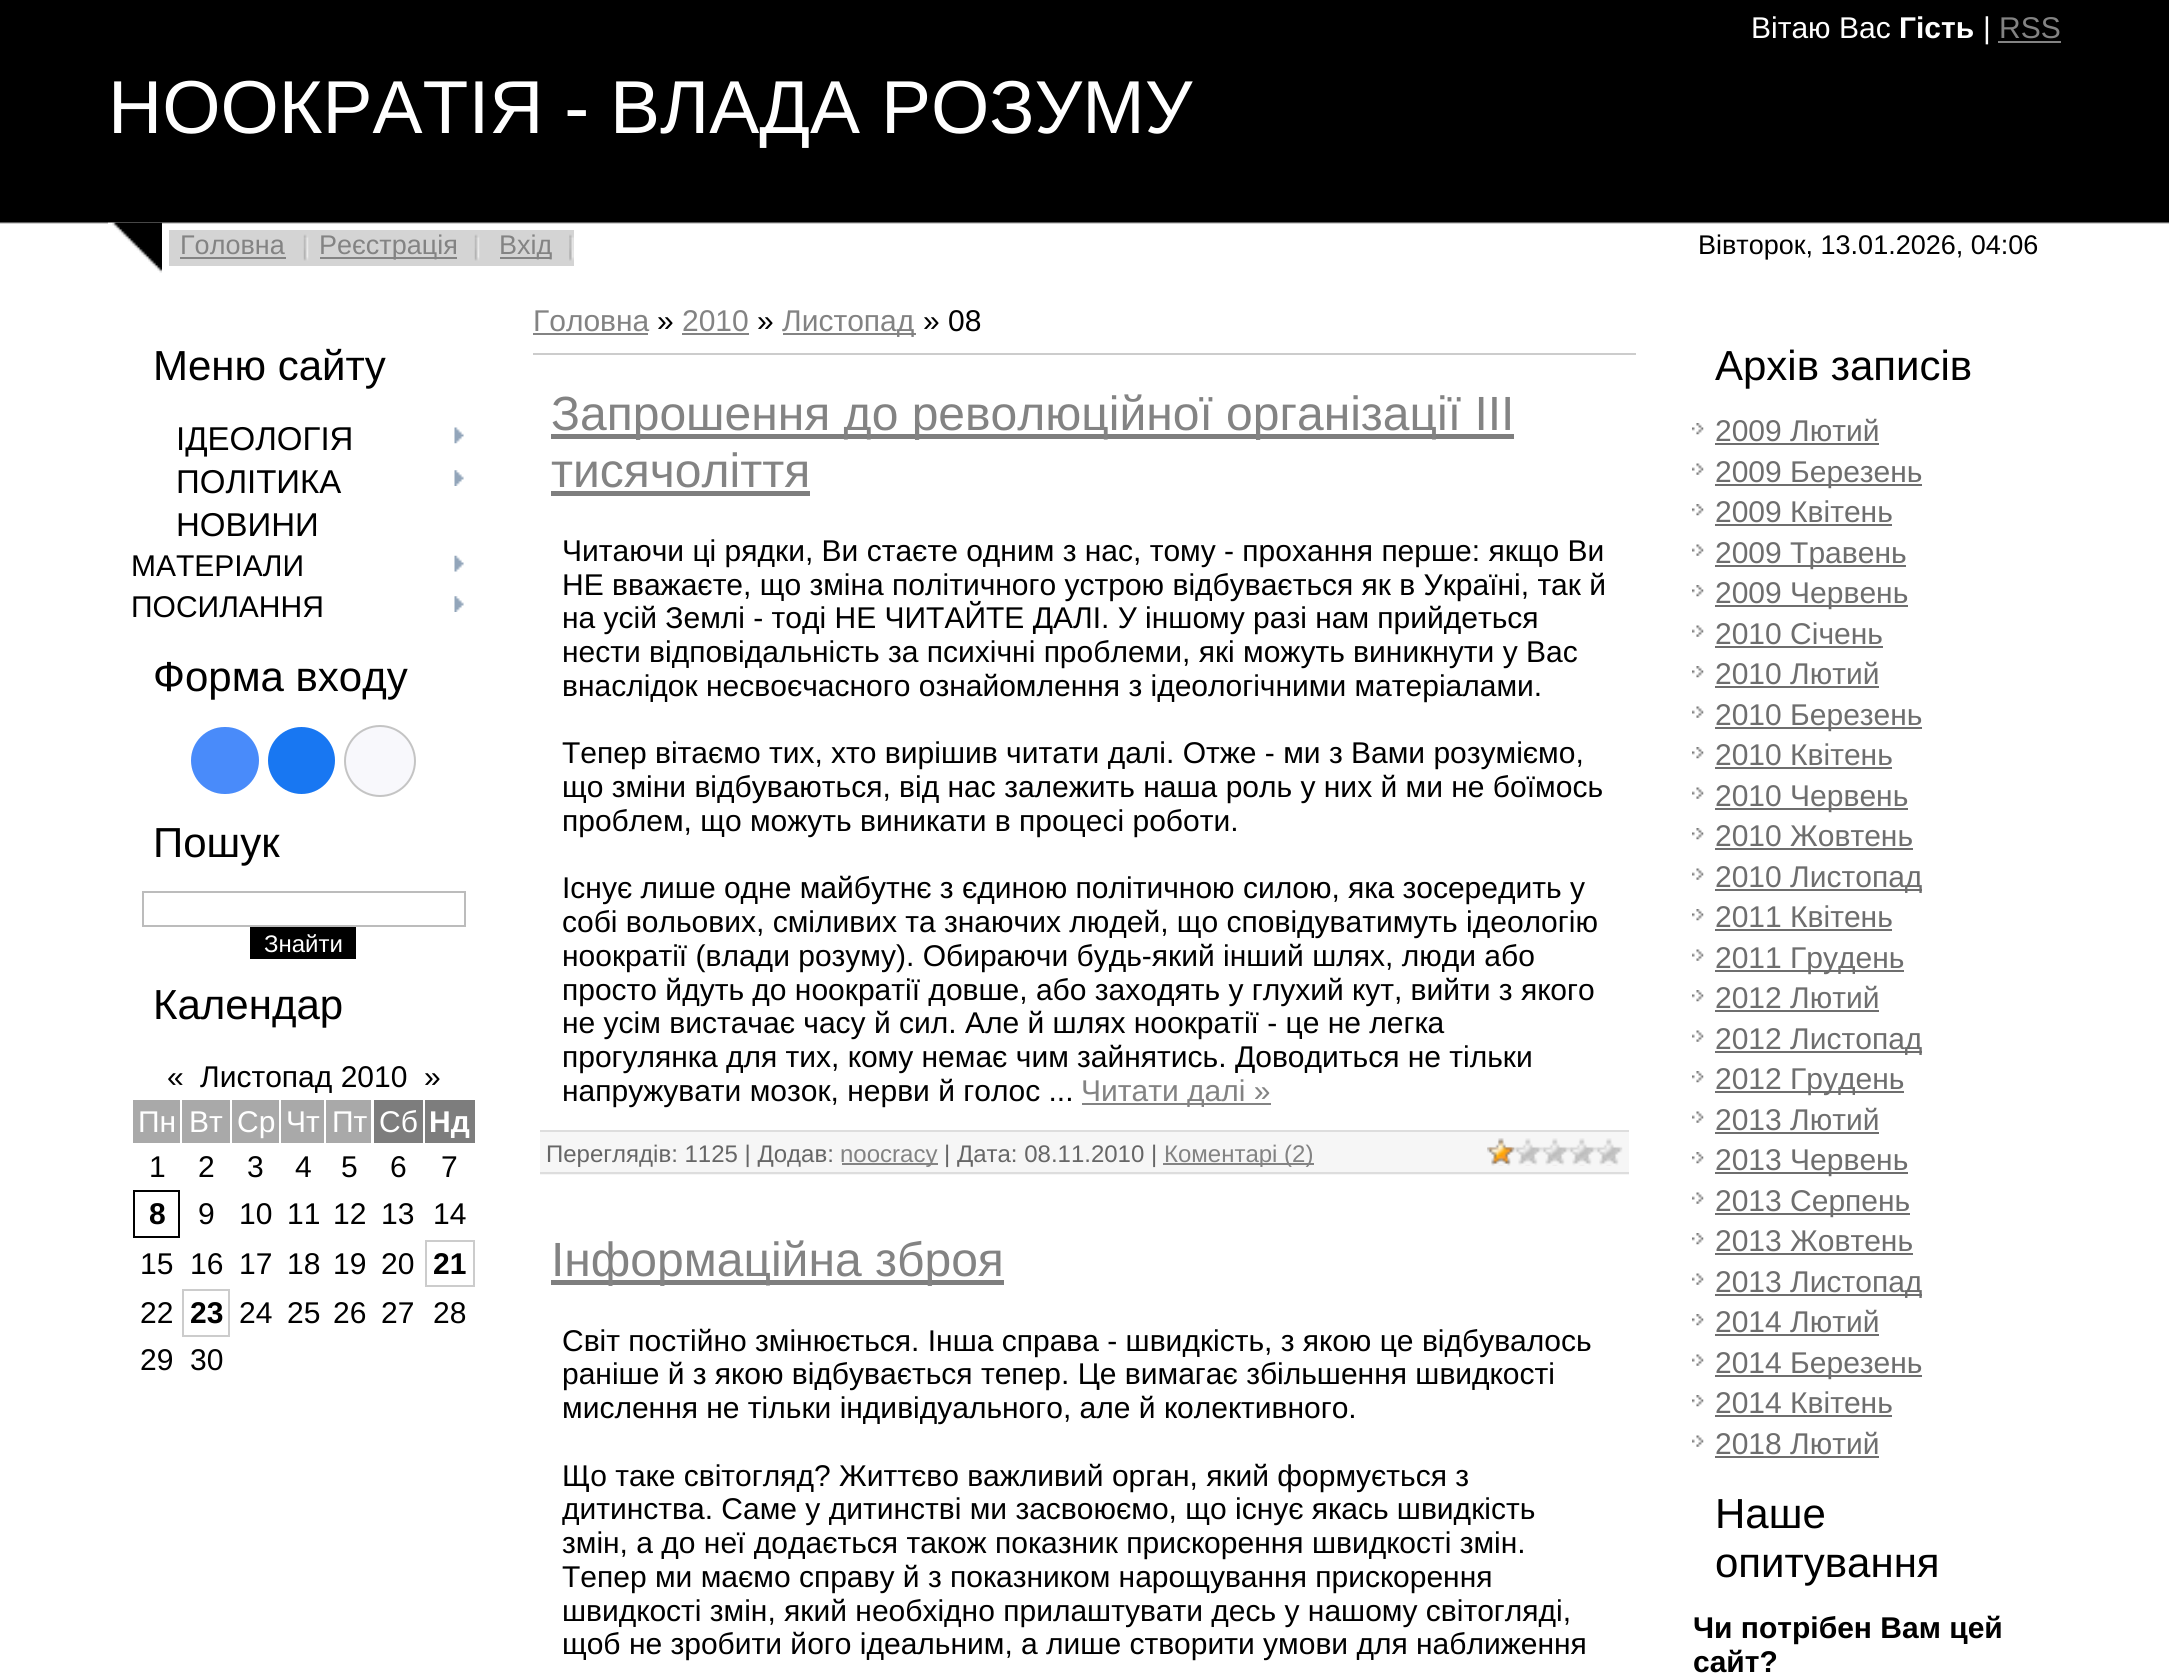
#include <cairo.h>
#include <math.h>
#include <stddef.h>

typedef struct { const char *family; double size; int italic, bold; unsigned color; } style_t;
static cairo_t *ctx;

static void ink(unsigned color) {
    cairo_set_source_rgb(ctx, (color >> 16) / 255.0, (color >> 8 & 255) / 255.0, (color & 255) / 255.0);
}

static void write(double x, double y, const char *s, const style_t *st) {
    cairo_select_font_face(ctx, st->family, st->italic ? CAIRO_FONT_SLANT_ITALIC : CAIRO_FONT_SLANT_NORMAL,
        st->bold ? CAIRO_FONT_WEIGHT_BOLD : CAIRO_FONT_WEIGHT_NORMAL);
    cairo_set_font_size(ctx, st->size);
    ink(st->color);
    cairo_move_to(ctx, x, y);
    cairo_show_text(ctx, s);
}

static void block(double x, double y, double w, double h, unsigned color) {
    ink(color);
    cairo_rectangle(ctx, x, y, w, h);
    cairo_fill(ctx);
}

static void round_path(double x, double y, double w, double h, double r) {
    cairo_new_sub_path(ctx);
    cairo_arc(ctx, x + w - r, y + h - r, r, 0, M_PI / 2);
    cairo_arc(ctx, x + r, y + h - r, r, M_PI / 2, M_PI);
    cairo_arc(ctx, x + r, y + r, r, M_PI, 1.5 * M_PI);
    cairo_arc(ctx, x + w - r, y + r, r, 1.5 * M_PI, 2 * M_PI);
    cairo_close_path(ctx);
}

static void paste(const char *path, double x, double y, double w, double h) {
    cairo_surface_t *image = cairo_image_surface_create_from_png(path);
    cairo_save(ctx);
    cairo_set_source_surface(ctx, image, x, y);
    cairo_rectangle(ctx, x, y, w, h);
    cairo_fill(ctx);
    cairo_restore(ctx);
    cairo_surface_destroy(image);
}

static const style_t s1 = {"Liberation Sans", 30, 0, 0, 0xffffff};
static const style_t s2 = {"Liberation Sans", 30, 0, 1, 0xffffff};
static const style_t s3 = {"Liberation Sans", 30, 0, 0, 0x838383};
static const style_t s4 = {"Liberation Sans", 75, 0, 0, 0xffffff};
static const style_t s5 = {"Liberation Sans", 27, 0, 0, 0x838383};
static const style_t s6 = {"Liberation Sans", 27, 0, 0, 0x000000};
static const style_t s7 = {"Liberation Sans", 42, 0, 0, 0x000000};
static const style_t s8 = {"Liberation Sans", 33, 0, 0, 0x000000};
static const style_t s9 = {"Liberation Sans", 30, 0, 0, 0x000000};
static const style_t s10 = {"Liberation Sans", 24, 0, 0, 0xffffff};
static const style_t s11 = {"Liberation Sans", 30, 0, 1, 0x000000};
static const style_t s12 = {"Liberation Sans", 48, 0, 0, 0x838383};
static const style_t s13 = {"Liberation Sans", 24, 0, 0, 0x666666};
static const style_t s14 = {"Liberation Sans", 24, 0, 0, 0x838383};
static const style_t s15 = {"Liberation Sans", 30, 0, 0, 0x6e6e6e};

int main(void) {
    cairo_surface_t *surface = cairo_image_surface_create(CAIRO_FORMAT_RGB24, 2169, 1676);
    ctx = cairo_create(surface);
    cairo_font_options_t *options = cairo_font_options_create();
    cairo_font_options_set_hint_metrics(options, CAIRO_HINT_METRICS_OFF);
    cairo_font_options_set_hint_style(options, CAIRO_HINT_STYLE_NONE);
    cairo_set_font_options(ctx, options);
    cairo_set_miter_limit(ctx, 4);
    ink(0xffffff);
    cairo_paint(ctx);
    paste("pic1.png", 0, 0, 2169, 224);
    write(1751, 38, "Вітаю Вас", &s1);
    write(1899, 38, "Гість", &s2);
    write(1983, 38, "|", &s1);
    write(1999, 38, "RSS", &s3);
    block(1998, 41, 63, 2, 0x838383);
    write(108, 133, "НООКРАТІЯ - ВЛАДА РОЗУМУ", &s4);
    paste("pic2.png", 108, 222, 54, 51);
    block(169, 230, 405, 36, 0xd4d4d4);
    write(180, 254, "Головна", &s5);
    block(180, 257, 106, 2, 0x838383);
    paste("pic3.png", 303, 234, 6, 27);
    block(320, 257, 137, 2, 0x838383);
    write(319, 254, "Реєстрація", &s5);
    paste("pic3.png", 474, 234, 6, 27);
    block(500, 257, 51, 2, 0x838383);
    write(499, 254, "Вхід", &s5);
    paste("pic4.png", 569, 234, 5, 27);
    write(1698, 254, "Вівторок, 13.01.2026, 04:06", &s6);
    write(153, 380, "Меню сайту", &s7);
    write(176, 450, "ІДЕОЛОГІЯ", &s8);
    paste("pic5.png", 454, 427, 10, 17);
    write(176, 493, "ПОЛІТИКА", &s8);
    paste("pic6.png", 454, 470, 10, 16);
    write(176, 536, "НОВИНИ", &s8);
    write(131, 576, "МАТЕРІАЛИ", &s9);
    paste("pic7.png", 454, 555, 10, 17);
    write(131, 617, "ПОСИЛАННЯ", &s9);
    paste("pic6.png", 454, 596, 10, 16);
    write(153, 691, "Форма входу", &s7);
    ink(0x498bfa);
    round_path(191, 727, 68, 67, 33.5);
    cairo_fill(ctx);
    ink(0x1877f2);
    cairo_arc(ctx, 301.5, 760.5, 33.5, 0, 2 * M_PI);
    cairo_fill(ctx);
    ink(0xf8f8fc);
    cairo_arc(ctx, 380, 761, 35, 0, 2 * M_PI);
    cairo_fill_preserve(ctx);
    ink(0xc4c4c4);
    cairo_stroke(ctx);
    write(153, 857, "Пошук", &s7);
    cairo_rectangle(ctx, 143, 892, 322, 34);
    ink(0xbcbcbc);
    cairo_stroke(ctx);
    block(250, 927, 106, 32, 0x000000);
    write(264, 952, "Знайти", &s10);
    write(153, 1019, "Календар", &s7);
    write(167, 1087, "«", &s9);
    write(200, 1087, "Листопад 2010", &s9);
    write(424, 1087, "»", &s9);
    block(133, 1100, 47, 43, 0xa9a9a9);
    write(138, 1132, "Пн", &s1);
    block(182, 1100, 48, 43, 0xa9a9a9);
    write(189, 1132, "Вт", &s1);
    block(232, 1100, 47, 43, 0xa9a9a9);
    write(237, 1132, "Ср", &s1);
    block(281, 1100, 43, 43, 0xa9a9a9);
    write(286, 1132, "Чт", &s1);
    block(326, 1100, 45, 43, 0xa9a9a9);
    write(332, 1132, "Пт", &s1);
    block(374, 1100, 49, 43, 0x7d7d7d);
    write(379, 1132, "Сб", &s1);
    block(425, 1100, 50, 43, 0x7d7d7d);
    write(429, 1132, "Нд", &s2);
    write(149, 1177, "1", &s9);
    write(198, 1177, "2", &s9);
    write(247, 1177, "3", &s9);
    write(295, 1177, "4", &s9);
    write(341, 1177, "5", &s9);
    write(390, 1177, "6", &s9);
    write(441, 1177, "7", &s9);
    cairo_rectangle(ctx, 134, 1191, 45, 46);
    cairo_stroke(ctx);
    write(149, 1224, "8", &s11);
    write(198, 1224, "9", &s9);
    write(239, 1224, "10", &s9);
    write(287, 1224, "11", &s9);
    write(333, 1224, "12", &s9);
    write(381, 1224, "13", &s9);
    write(433, 1224, "14", &s9);
    write(140, 1274, "15", &s9);
    write(190, 1274, "16", &s9);
    write(239, 1274, "17", &s9);
    write(287, 1274, "18", &s9);
    write(333, 1274, "19", &s9);
    write(381, 1274, "20", &s9);
    cairo_rectangle(ctx, 426, 1241, 48, 45);
    ink(0xcccccc);
    cairo_stroke(ctx);
    write(433, 1274, "21", &s11);
    write(140, 1323, "22", &s9);
    cairo_rectangle(ctx, 183, 1290, 46, 46);
    ink(0xcccccc);
    cairo_stroke(ctx);
    write(190, 1323, "23", &s11);
    write(239, 1323, "24", &s9);
    write(287, 1323, "25", &s9);
    write(333, 1323, "26", &s9);
    write(381, 1323, "27", &s9);
    write(433, 1323, "28", &s9);
    write(140, 1370, "29", &s9);
    write(190, 1370, "30", &s9);
    write(533, 331, "Головна", &s3);
    block(533, 333, 115, 2, 0x838383);
    write(657, 331, "»", &s9);
    write(682, 331, "2010", &s3);
    block(682, 333, 67, 2, 0x838383);
    write(757, 331, "»", &s9);
    block(783, 333, 133, 2, 0x838383);
    write(782, 331, "Листопад", &s3);
    write(923, 331, "» 08", &s9);
    block(533, 353, 1103, 2, 0xcccccc);
    block(551, 434, 963, 5, 0x7e7e7e);
    write(551, 430, "Запрошення до революційної організації ІІІ", &s12);
    write(551, 487, "тисячоліття", &s12);
    block(551, 491, 259, 5, 0x7e7e7e);
    write(562, 561, "Читаючи ці рядки, Ви стаєте одним з нас, тому - прохання перше: якщо Ви", &s9);
    write(562, 595, "НЕ вважаєте, що зміна політичного устрою відбувається як в Україні, так й", &s9);
    write(562, 628, "на усій Землі - тоді НЕ ЧИТАЙТЕ ДАЛІ. У іншому разі нам прийдеться", &s9);
    write(562, 662, "нести відповідальність за психічні проблеми, які можуть виникнути у Вас", &s9);
    write(562, 696, "внаслідок несвоєчасного ознайомлення з ідеологічними матеріалами.", &s9);
    write(562, 763, "Тепер вітаємо тих, хто вирішив читати далі. Отже - ми з Вами розуміємо,", &s9);
    write(562, 797, "що зміни відбуваються, від нас залежить наша роль у них й ми не боїмось", &s9);
    write(562, 831, "проблем, що можуть виникати в процесі роботи.", &s9);
    write(562, 898, "Існує лише одне майбутнє з єдиною політичною силою, яка зосередить у", &s9);
    write(562, 932, "собі вольових, сміливих та знаючих людей, що сповідуватимуть ідеологію", &s9);
    write(562, 966, "ноократії (влади розуму). Обираючи будь-який інший шлях, люди або", &s9);
    write(562, 1000, "просто йдуть до ноократії довше, або заходять у глухий кут, вийти з якого", &s9);
    write(562, 1033, "не усім вистачає часу й сил. Але й шлях ноократії - це не легка", &s9);
    write(562, 1067, "прогулянка для тих, кому немає чим зайнятись. Доводиться не тільки", &s9);
    write(562, 1101, "напружувати мозок, нерви й голос ...", &s9);
    block(1082, 1103, 189, 2, 0x838383);
    write(1081, 1101, "Читати далі »", &s3);
    block(540, 1132, 1089, 43, 0xf6f6f6);
    block(540, 1130, 1089, 2, 0xdddddd);
    block(540, 1172, 1089, 2, 0xdddddd);
    write(546, 1162, "Переглядів: 1125 | Додав:", &s13);
    block(842, 1163, 96, 2, 0x838383);
    write(840, 1162, "noocracy", &s14);
    write(944, 1162, "| Дата: 08.11.2010 |", &s13);
    block(1163, 1163, 151, 2, 0x838383);
    write(1164, 1162, "Коментарі (2)", &s14);
    paste("pic8.png", 1487, 1138, 136, 28);
    paste("pic9.png", 1487, 1138, 28, 28);
    block(551, 1280, 453, 5, 0x7e7e7e);
    write(551, 1276, "Інформаційна зброя", &s12);
    write(562, 1351, "Світ постійно змінюється. Інша справа - швидкість, з якою це відбувалось", &s9);
    write(562, 1384, "раніше й з якою відбувається тепер. Це вимагає збільшення швидкості", &s9);
    write(562, 1418, "мислення не тільки індивідуального, але й колективного.", &s9);
    write(562, 1486, "Що таке світогляд? Життєво важливий орган, який формується з", &s9);
    write(562, 1519, "дитинства. Саме у дитинстві ми засвоюємо, що існує якась швидкість", &s9);
    write(562, 1553, "змін, а до неї додається також показник прискорення швидкості змін.", &s9);
    write(562, 1587, "Тепер ми маємо справу й з показником нарощування прискорення", &s9);
    write(562, 1621, "швидкості змін, який необхідно прилаштувати десь у нашому світогляді,", &s9);
    write(562, 1654, "щоб не зробити його ідеальним, а лише створити умови для наближення", &s9);
    write(1715, 380, "Архів записів", &s7);
    paste("pic10.png", 1692, 423, 12, 12);
    write(1715, 441, "2009 Лютий", &s15);
    block(1715, 443, 164, 2, 0x6e6e6e);
    paste("pic11.png", 1692, 463, 12, 12);
    block(1715, 484, 207, 2, 0x6e6e6e);
    write(1715, 482, "2009 Березень", &s15);
    paste("pic10.png", 1692, 504, 12, 12);
    write(1715, 522, "2009 Квітень", &s15);
    block(1715, 524, 177, 2, 0x6e6e6e);
    paste("pic11.png", 1692, 544, 12, 12);
    block(1715, 565, 191, 2, 0x6e6e6e);
    write(1715, 563, "2009 Травень", &s15);
    paste("pic10.png", 1692, 585, 12, 12);
    block(1715, 605, 193, 2, 0x6e6e6e);
    write(1715, 603, "2009 Червень", &s15);
    paste("pic11.png", 1692, 625, 12, 12);
    write(1715, 644, "2010 Січень", &s15);
    block(1715, 646, 168, 2, 0x6e6e6e);
    paste("pic10.png", 1692, 666, 12, 12);
    write(1715, 684, "2010 Лютий", &s15);
    block(1715, 686, 164, 2, 0x6e6e6e);
    paste("pic11.png", 1692, 706, 12, 12);
    block(1715, 727, 207, 2, 0x6e6e6e);
    write(1715, 725, "2010 Березень", &s15);
    paste("pic10.png", 1692, 747, 12, 12);
    write(1715, 765, "2010 Квітень", &s15);
    block(1715, 767, 177, 2, 0x6e6e6e);
    paste("pic11.png", 1692, 787, 12, 12);
    block(1715, 808, 193, 2, 0x6e6e6e);
    write(1715, 806, "2010 Червень", &s15);
    paste("pic10.png", 1692, 828, 12, 12);
    write(1715, 846, "2010 Жовтень", &s15);
    block(1715, 848, 198, 2, 0x6e6e6e);
    paste("pic11.png", 1692, 868, 12, 12);
    block(1715, 889, 207, 2, 0x6e6e6e);
    write(1715, 887, "2010 Листопад", &s15);
    paste("pic10.png", 1692, 909, 12, 12);
    write(1715, 927, "2011 Квітень", &s15);
    block(1715, 929, 177, 2, 0x6e6e6e);
    paste("pic11.png", 1692, 949, 12, 12);
    block(1715, 970, 189, 2, 0x6e6e6e);
    write(1715, 968, "2011 Грудень", &s15);
    paste("pic10.png", 1692, 990, 12, 12);
    write(1715, 1008, "2012 Лютий", &s15);
    block(1715, 1010, 164, 2, 0x6e6e6e);
    paste("pic11.png", 1692, 1030, 12, 12);
    block(1715, 1051, 207, 2, 0x6e6e6e);
    write(1715, 1049, "2012 Листопад", &s15);
    paste("pic10.png", 1692, 1071, 12, 12);
    block(1715, 1091, 189, 2, 0x6e6e6e);
    write(1715, 1089, "2012 Грудень", &s15);
    paste("pic11.png", 1692, 1111, 12, 12);
    write(1715, 1130, "2013 Лютий", &s15);
    block(1715, 1132, 164, 2, 0x6e6e6e);
    paste("pic10.png", 1692, 1152, 12, 12);
    block(1715, 1172, 193, 2, 0x6e6e6e);
    write(1715, 1170, "2013 Червень", &s15);
    paste("pic11.png", 1692, 1192, 12, 12);
    block(1715, 1213, 195, 2, 0x6e6e6e);
    write(1715, 1211, "2013 Серпень", &s15);
    paste("pic10.png", 1692, 1233, 12, 12);
    write(1715, 1251, "2013 Жовтень", &s15);
    block(1715, 1253, 198, 2, 0x6e6e6e);
    paste("pic11.png", 1692, 1273, 12, 12);
    block(1715, 1294, 207, 2, 0x6e6e6e);
    write(1715, 1292, "2013 Листопад", &s15);
    paste("pic10.png", 1692, 1314, 12, 12);
    write(1715, 1332, "2014 Лютий", &s15);
    block(1715, 1334, 164, 2, 0x6e6e6e);
    paste("pic11.png", 1692, 1354, 12, 12);
    block(1715, 1375, 207, 2, 0x6e6e6e);
    write(1715, 1373, "2014 Березень", &s15);
    paste("pic10.png", 1692, 1395, 12, 12);
    write(1715, 1413, "2014 Квітень", &s15);
    block(1715, 1415, 177, 2, 0x6e6e6e);
    paste("pic11.png", 1692, 1435, 12, 12);
    write(1715, 1454, "2018 Лютий", &s15);
    block(1715, 1456, 164, 2, 0x6e6e6e);
    write(1715, 1528, "Наше", &s7);
    write(1715, 1577, "опитування", &s7);
    write(1693, 1638, "Чи потрібен Вам цей", &s11);
    write(1693, 1672, "сайт?", &s11);
    cairo_surface_write_to_png(surface, "screenshot.png");
    cairo_font_options_destroy(options);
    cairo_destroy(ctx);
    cairo_surface_destroy(surface);
    return 0;
}
